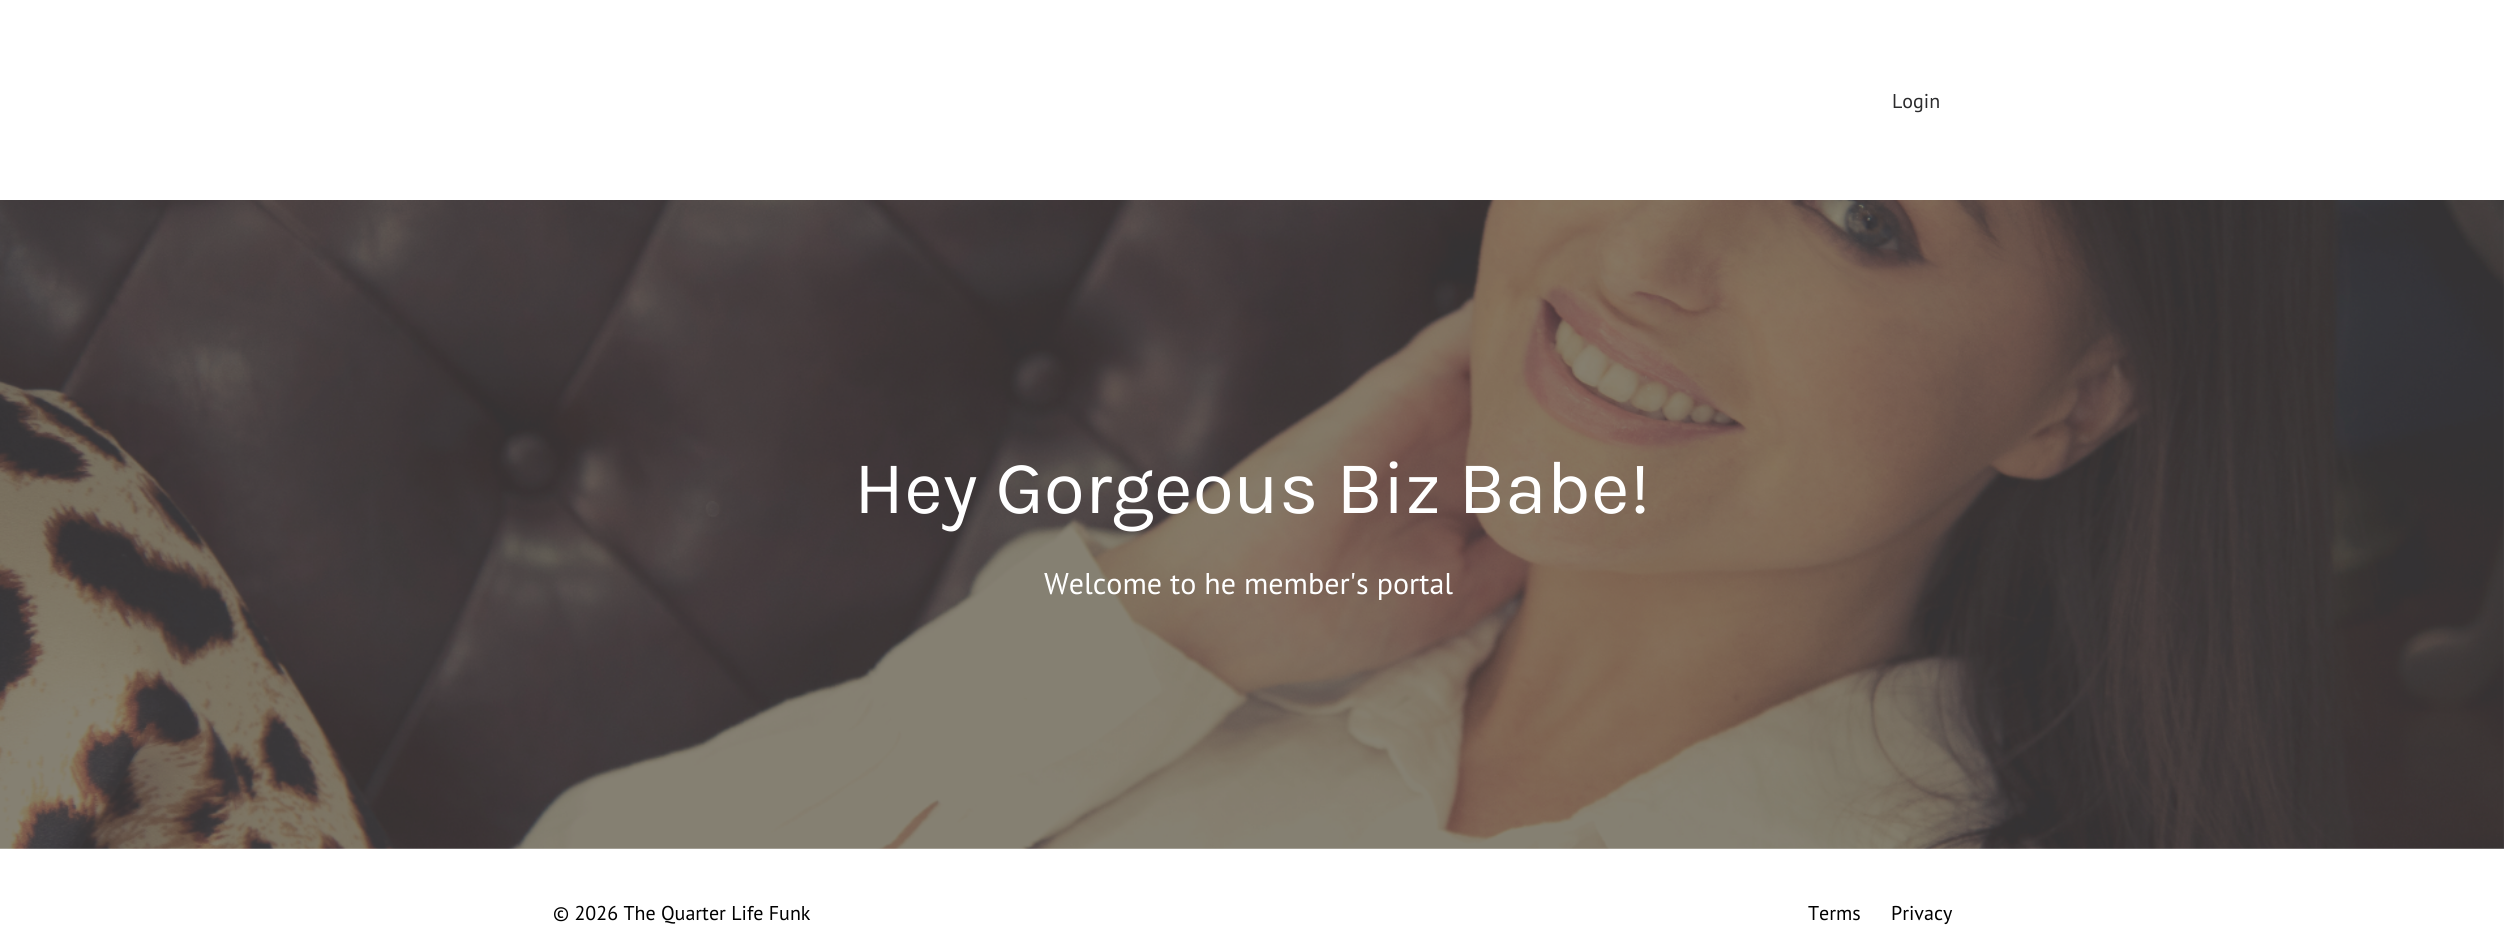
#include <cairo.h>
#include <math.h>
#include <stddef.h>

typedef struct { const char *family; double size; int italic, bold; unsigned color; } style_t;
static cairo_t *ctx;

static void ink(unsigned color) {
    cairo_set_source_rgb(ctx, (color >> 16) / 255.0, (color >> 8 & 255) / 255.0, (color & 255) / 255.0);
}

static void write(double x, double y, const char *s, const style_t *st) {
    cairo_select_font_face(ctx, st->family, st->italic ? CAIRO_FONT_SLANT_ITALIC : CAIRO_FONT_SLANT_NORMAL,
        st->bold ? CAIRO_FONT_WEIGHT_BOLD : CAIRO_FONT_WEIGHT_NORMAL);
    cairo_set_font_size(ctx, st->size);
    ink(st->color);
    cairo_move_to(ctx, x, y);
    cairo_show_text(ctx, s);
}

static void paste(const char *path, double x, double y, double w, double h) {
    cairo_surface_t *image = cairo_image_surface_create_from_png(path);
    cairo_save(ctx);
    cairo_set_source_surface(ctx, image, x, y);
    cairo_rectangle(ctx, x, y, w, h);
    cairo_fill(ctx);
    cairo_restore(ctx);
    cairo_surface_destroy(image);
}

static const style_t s1 = {"PT Sans", 20, 0, 0, 0x2b2b2d};
static const style_t s2 = {"Karla", 75, 0, 0, 0xffffff};
static const style_t s3 = {"PT Sans", 30, 0, 0, 0xffffff};
static const style_t s4 = {"PT Sans", 20, 0, 0, 0x000000};

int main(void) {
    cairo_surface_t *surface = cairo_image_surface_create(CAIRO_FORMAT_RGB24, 2504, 926);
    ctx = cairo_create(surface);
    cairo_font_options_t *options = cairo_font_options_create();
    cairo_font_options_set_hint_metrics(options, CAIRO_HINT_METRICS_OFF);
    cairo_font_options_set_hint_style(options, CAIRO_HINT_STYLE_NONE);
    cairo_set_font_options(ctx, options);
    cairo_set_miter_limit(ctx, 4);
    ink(0xffffff);
    cairo_paint(ctx);
    write(1892, 108, "Login", &s1);
    paste("pic1.png", 0, 200, 2504, 649);
    write(854, 513, "Hey Gorgeous Biz Babe!", &s2);
    write(1044, 594, "Welcome to he member's portal", &s3);
    write(553, 920, "© 2026 The Quarter Life Funk", &s4);
    write(1808, 920, "Terms", &s4);
    write(1891, 920, "Privacy", &s4);
    cairo_surface_write_to_png(surface, "screenshot.png");
    cairo_font_options_destroy(options);
    cairo_destroy(ctx);
    cairo_surface_destroy(surface);
    return 0;
}
